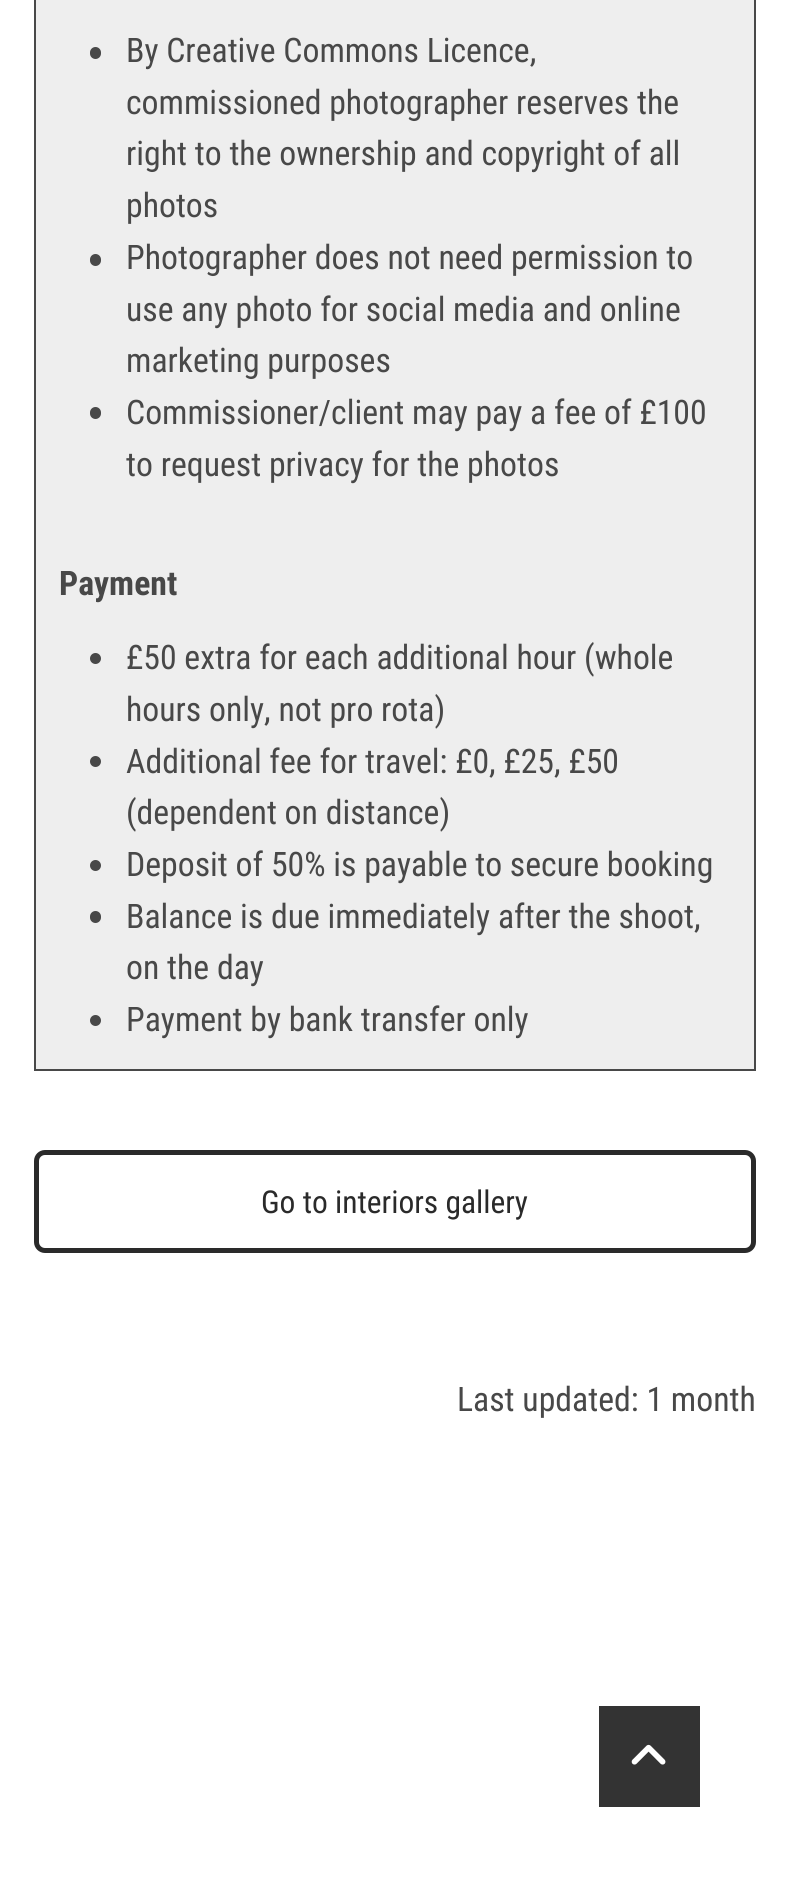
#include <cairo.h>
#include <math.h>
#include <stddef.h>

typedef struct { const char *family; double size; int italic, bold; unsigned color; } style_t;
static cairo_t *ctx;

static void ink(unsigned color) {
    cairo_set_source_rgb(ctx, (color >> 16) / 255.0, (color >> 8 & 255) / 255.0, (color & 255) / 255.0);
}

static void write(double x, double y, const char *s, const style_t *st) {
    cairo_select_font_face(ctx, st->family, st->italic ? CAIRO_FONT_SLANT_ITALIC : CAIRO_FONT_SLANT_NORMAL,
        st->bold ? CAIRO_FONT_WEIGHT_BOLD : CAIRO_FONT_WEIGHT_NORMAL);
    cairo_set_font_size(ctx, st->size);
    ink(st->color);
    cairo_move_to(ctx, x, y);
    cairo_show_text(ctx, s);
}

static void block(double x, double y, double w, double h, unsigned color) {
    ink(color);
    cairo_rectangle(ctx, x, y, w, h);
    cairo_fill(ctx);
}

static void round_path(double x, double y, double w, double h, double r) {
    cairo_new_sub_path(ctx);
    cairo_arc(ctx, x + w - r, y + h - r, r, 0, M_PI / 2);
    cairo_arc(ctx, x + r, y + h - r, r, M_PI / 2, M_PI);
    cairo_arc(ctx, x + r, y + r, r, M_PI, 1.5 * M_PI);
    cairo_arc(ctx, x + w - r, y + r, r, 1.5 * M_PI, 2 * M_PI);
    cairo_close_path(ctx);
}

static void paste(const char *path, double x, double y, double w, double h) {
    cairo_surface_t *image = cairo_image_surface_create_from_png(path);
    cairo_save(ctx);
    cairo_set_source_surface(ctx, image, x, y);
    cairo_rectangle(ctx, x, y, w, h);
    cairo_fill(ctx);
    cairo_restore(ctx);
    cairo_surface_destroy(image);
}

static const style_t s1 = {"Roboto Condensed", 33.75, 0, 0, 0x484848};
static const style_t s2 = {"Roboto Condensed", 33.75, 0, 1, 0x484848};
static const style_t s3 = {"Roboto Condensed", 31.5, 0, 0, 0x2a2a2a};

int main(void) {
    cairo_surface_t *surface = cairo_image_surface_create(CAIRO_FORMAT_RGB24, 788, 1896);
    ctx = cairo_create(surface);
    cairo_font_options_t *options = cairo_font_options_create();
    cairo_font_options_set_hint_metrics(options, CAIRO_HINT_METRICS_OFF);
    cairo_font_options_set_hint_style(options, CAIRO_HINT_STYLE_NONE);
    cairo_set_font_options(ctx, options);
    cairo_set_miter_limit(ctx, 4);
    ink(0xffffff);
    cairo_paint(ctx);
    ink(0xeeeeee);
    cairo_rectangle(ctx, 35, -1, 720, 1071);
    cairo_fill_preserve(ctx);
    ink(0x484848);
    cairo_stroke(ctx);
    round_path(90, 47, 11, 12, 5.5);
    cairo_fill(ctx);
    write(126, 62, "By Creative Commons Licence,", &s1);
    write(126, 114, "commissioned photographer reserves the", &s1);
    write(126, 165, "right to the ownership and copyright of all", &s1);
    write(126, 217, "photos", &s1);
    round_path(90, 254, 11, 12, 5.5);
    cairo_fill(ctx);
    write(126, 269, "Photographer does not need permission to", &s1);
    write(126, 321, "use any photo for social media and online", &s1);
    write(126, 372, "marketing purposes", &s1);
    round_path(90, 407, 11, 12, 5.5);
    cairo_fill(ctx);
    write(126, 424, "Commissioner/client may pay a fee of £100", &s1);
    write(126, 476, "to request privacy for the photos", &s1);
    write(59, 595, "Payment", &s2);
    cairo_new_path(ctx);
    cairo_arc(ctx, 95.5, 658.5, 5.5, 0, 2 * M_PI);
    cairo_fill(ctx);
    write(126, 669, "£50 extra for each additional hour (whole", &s1);
    write(126, 721, "hours only, not pro rota)", &s1);
    cairo_new_path(ctx);
    cairo_arc(ctx, 95.5, 761.5, 5.5, 0, 2 * M_PI);
    cairo_fill(ctx);
    write(126, 773, "Additional fee for travel: £0, £25, £50", &s1);
    write(126, 824, "(dependent on distance)", &s1);
    cairo_new_path(ctx);
    cairo_arc(ctx, 95.5, 865.5, 5.5, 0, 2 * M_PI);
    cairo_fill(ctx);
    write(126, 876, "Deposit of 50% is payable to secure booking", &s1);
    round_path(90, 911, 11, 12, 5.5);
    cairo_fill(ctx);
    write(126, 928, "Balance is due immediately after the shoot,", &s1);
    write(126, 979, "on the day", &s1);
    cairo_new_path(ctx);
    cairo_arc(ctx, 95.5, 1020.5, 5.5, 0, 2 * M_PI);
    cairo_fill(ctx);
    write(126, 1031, "Payment by bank transfer only", &s1);
    round_path(36.5, 1152.5, 717, 98, 8.5);
    ink(0x2a2a2a);
    cairo_set_line_width(ctx, 5);
    cairo_stroke(ctx);
    write(261, 1213, "Go to interiors gallery", &s3);
    write(457, 1411, "Last updated: 1 month", &s1);
    block(599, 1706, 101, 101, 0x333333);
    paste("pic1.png", 631, 1744, 35, 21);
    cairo_surface_write_to_png(surface, "screenshot.png");
    cairo_font_options_destroy(options);
    cairo_destroy(ctx);
    cairo_surface_destroy(surface);
    return 0;
}
